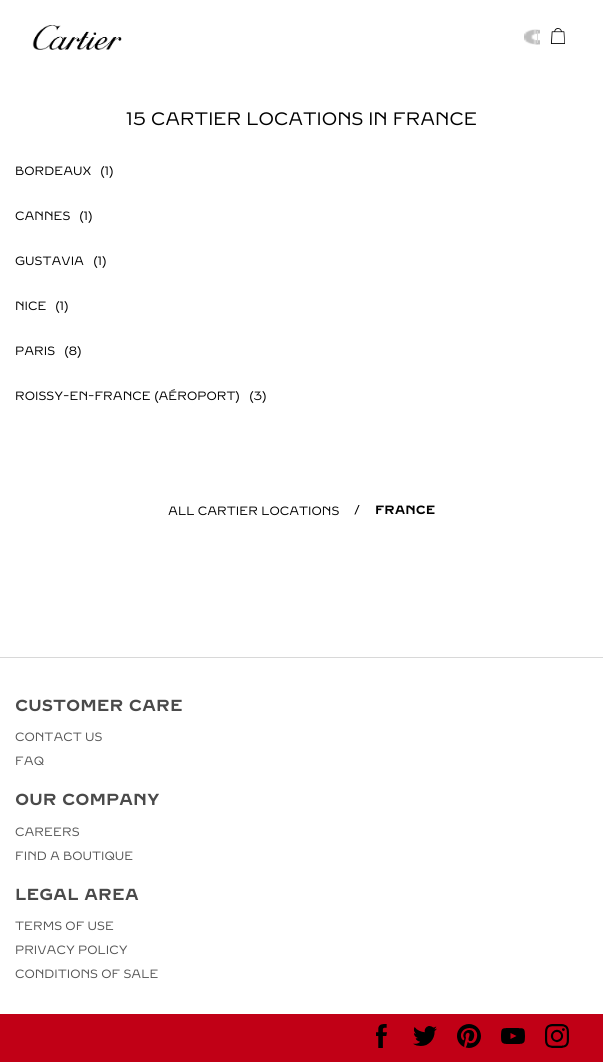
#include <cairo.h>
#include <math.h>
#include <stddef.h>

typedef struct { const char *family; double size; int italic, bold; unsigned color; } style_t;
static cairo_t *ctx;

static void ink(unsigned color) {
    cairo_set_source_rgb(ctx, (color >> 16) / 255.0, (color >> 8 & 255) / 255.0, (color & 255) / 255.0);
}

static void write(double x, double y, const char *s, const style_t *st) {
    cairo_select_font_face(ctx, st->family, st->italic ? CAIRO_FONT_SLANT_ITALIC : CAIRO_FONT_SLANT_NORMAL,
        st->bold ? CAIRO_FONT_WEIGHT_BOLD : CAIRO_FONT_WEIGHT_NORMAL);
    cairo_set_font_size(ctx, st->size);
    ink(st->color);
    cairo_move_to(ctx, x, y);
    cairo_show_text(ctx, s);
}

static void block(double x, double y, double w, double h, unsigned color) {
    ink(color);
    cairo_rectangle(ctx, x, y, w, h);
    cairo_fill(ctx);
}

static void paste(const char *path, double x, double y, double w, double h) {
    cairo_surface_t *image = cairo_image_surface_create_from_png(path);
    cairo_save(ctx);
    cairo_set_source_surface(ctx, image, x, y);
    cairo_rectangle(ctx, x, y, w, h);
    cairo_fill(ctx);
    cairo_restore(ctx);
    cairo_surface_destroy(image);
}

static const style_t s1 = {"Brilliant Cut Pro", 18, 0, 0, 0x000000};
static const style_t s2 = {"Brilliant Cut Pro", 12, 0, 0, 0x000000};
static const style_t s3 = {"Brilliant Cut Pro", 12, 0, 1, 0x000000};
static const style_t s4 = {"Brilliant Cut Pro", 16, 0, 1, 0x4a4a4a};
static const style_t s5 = {"Brilliant Cut Pro", 12, 0, 0, 0x555555};

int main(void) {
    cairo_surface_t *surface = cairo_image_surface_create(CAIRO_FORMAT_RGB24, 603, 1062);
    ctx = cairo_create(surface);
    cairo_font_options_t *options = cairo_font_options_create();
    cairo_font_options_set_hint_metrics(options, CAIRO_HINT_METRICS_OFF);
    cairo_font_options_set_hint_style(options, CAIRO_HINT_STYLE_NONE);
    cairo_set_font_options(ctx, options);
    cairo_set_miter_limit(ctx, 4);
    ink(0xffffff);
    cairo_paint(ctx);
    paste("pic1.png", 32, 25, 90, 25);
    paste("pic2.png", 524, 29, 16, 16);
    block(537, 31, 1, 12, 0xd8d8d8);
    paste("pic3.png", 550, 28, 15, 16);
    write(126, 125, "15 CARTIER LOCATIONS IN FRANCE", &s1);
    write(15, 175, "BORDEAUX", &s2);
    write(100, 175, "(1)", &s2);
    write(15, 220, "CANNES", &s2);
    write(79, 220, "(1)", &s2);
    write(15, 265, "GUSTAVIA", &s2);
    write(93, 265, "(1)", &s2);
    write(15, 310, "NICE", &s2);
    write(55, 310, "(1)", &s2);
    write(15, 355, "PARIS", &s2);
    write(64, 355, "(8)", &s2);
    write(15, 400, "ROISSY-EN-FRANCE (AÉROPORT)", &s2);
    write(249, 400, "(3)", &s2);
    write(168, 515, "ALL CARTIER LOCATIONS", &s2);
    write(354, 514, "/", &s2);
    write(375, 514, "FRANCE", &s3);
    block(0, 657, 603, 1, 0xd8d8d8);
    write(15, 711, "CUSTOMER CARE", &s4);
    write(15, 741, "CONTACT US", &s5);
    write(15, 765, "FAQ", &s5);
    write(15, 805, "OUR COMPANY", &s4);
    write(15, 836, "CAREERS", &s5);
    write(15, 860, "FIND A BOUTIQUE", &s5);
    write(15, 900, "LEGAL AREA", &s4);
    write(15, 930, "TERMS OF USE", &s5);
    write(15, 954, "PRIVACY POLICY", &s5);
    write(15, 978, "CONDITIONS OF SALE", &s5);
    block(0, 1014, 603, 48, 0xc10016);
    paste("pic4.png", 376, 1024, 11, 24);
    paste("pic5.png", 413, 1026, 24, 20);
    paste("pic6.png", 457, 1024, 24, 24);
    paste("pic7.png", 501, 1028, 24, 16);
    paste("pic8.png", 545, 1024, 24, 24);
    cairo_surface_write_to_png(surface, "screenshot.png");
    cairo_font_options_destroy(options);
    cairo_destroy(ctx);
    cairo_surface_destroy(surface);
    return 0;
}
